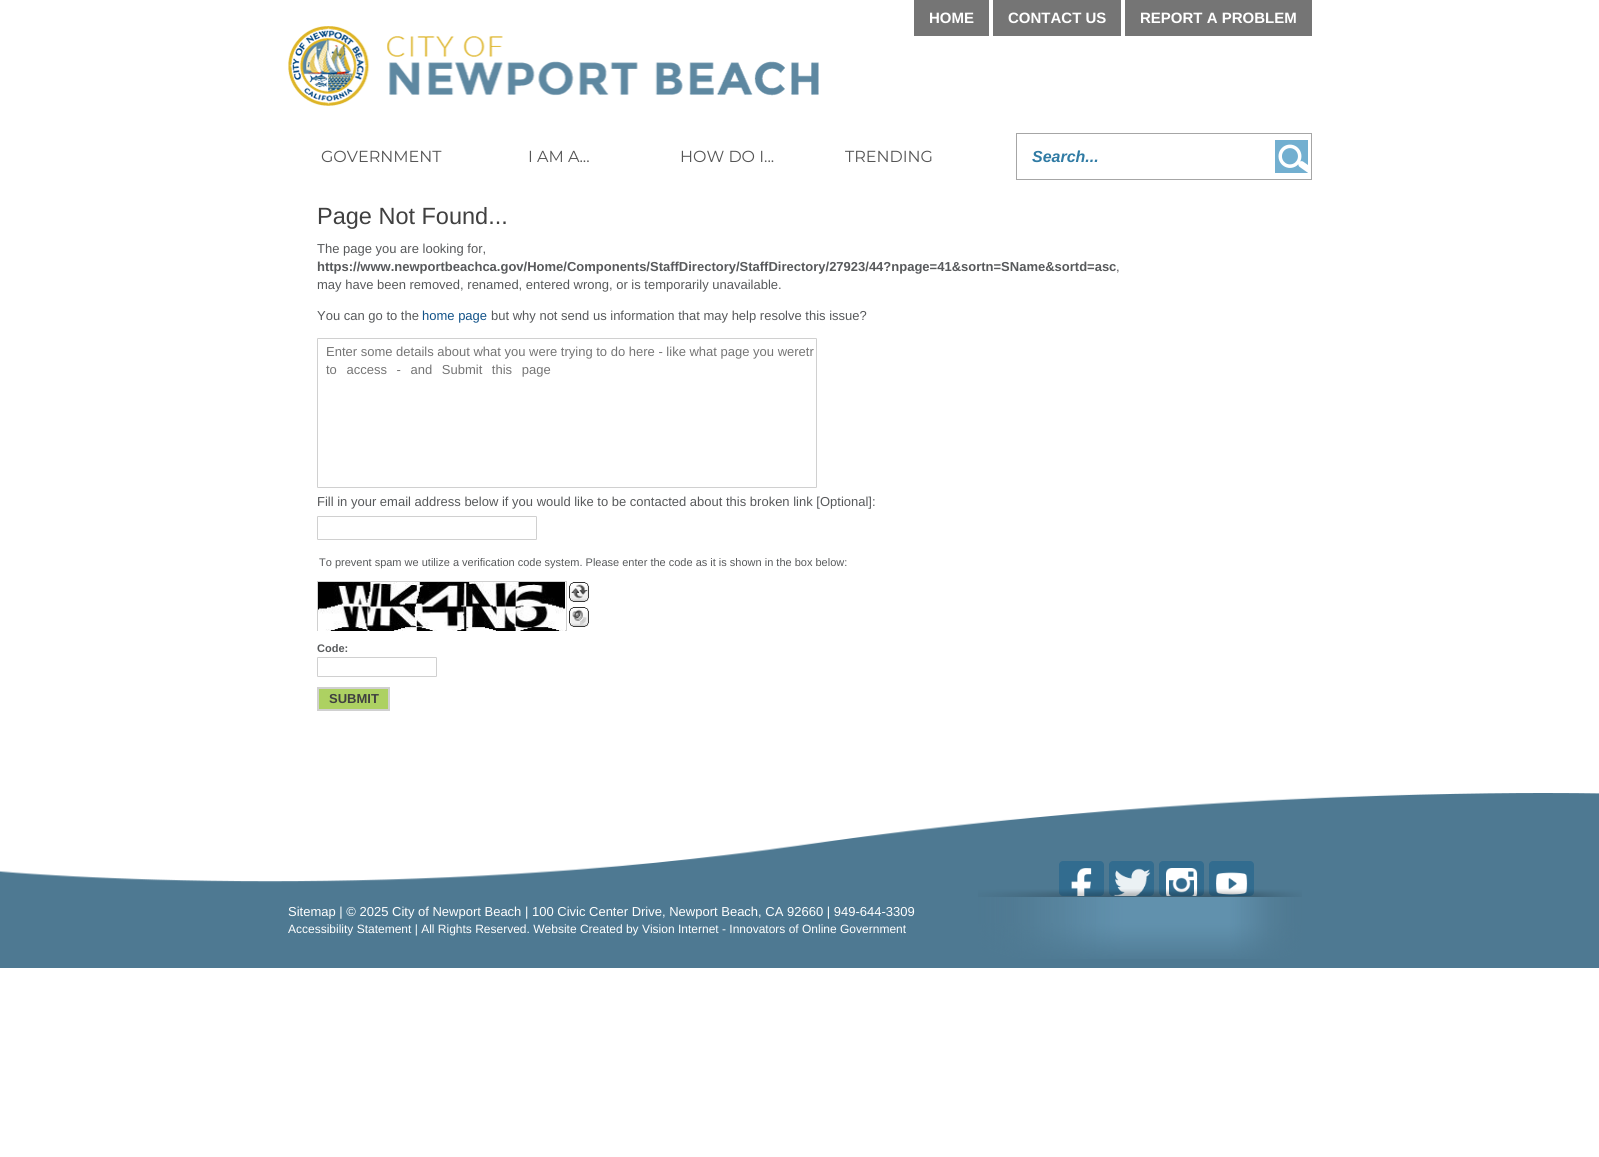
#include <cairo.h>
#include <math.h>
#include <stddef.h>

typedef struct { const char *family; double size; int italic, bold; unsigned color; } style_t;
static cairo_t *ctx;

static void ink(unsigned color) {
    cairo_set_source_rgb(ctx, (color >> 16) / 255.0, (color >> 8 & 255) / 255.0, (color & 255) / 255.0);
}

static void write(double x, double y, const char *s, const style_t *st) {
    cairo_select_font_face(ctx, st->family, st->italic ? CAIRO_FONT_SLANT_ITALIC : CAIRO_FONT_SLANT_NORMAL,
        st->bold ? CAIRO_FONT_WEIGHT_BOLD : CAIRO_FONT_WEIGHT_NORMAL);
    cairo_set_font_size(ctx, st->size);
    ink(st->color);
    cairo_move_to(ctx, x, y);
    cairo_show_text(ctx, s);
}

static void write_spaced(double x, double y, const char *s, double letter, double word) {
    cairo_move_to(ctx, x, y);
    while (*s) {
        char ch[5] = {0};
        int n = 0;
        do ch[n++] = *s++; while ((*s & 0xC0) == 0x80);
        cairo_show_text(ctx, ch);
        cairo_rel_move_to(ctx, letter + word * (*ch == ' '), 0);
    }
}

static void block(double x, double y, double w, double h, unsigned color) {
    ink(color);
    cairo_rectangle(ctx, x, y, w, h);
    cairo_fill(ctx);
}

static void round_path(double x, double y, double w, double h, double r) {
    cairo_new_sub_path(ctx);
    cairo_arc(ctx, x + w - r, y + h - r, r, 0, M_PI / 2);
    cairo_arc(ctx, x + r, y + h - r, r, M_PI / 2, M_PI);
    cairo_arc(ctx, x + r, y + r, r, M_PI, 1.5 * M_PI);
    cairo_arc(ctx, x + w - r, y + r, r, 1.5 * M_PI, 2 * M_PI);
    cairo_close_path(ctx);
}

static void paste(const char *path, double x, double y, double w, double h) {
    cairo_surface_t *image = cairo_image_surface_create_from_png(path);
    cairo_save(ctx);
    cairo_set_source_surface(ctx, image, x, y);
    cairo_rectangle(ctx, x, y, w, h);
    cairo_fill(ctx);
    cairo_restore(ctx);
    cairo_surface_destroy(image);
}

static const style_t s1 = {"Liberation Sans", 15, 0, 1, 0xffffff};
static const style_t s2 = {"Liberation Sans", 16, 1, 1, 0x307ba4};
static const style_t s3 = {"Montserrat", 16, 0, 0, 0x555555};
static const style_t s4 = {"Liberation Sans", 23.5, 0, 0, 0x404040};
static const style_t s5 = {"Liberation Sans", 13, 0, 0, 0x57595b};
static const style_t s6 = {"Liberation Sans", 13, 0, 1, 0x57595b};
static const style_t s7 = {"Liberation Sans", 13, 0, 0, 0x115288};
static const style_t s8 = {"Liberation Sans", 13, 0, 0, 0x757575};
static const style_t s9 = {"Liberation Sans", 11, 0, 0, 0x57595b};
static const style_t s10 = {"Liberation Sans", 11, 0, 1, 0x57595b};
static const style_t s11 = {"Liberation Sans", 13, 0, 1, 0x404040};
static const style_t s12 = {"Liberation Sans", 13, 0, 0, 0xffffff};
static const style_t s13 = {"Liberation Sans", 12, 0, 0, 0xffffff};

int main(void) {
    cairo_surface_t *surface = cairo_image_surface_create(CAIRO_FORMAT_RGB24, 1599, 1157);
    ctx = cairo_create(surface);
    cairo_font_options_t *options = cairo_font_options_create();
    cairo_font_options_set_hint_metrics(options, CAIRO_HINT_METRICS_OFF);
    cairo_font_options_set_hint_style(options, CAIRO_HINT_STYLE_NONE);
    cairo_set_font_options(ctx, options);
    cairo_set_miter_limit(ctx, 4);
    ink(0xffffff);
    cairo_paint(ctx);
    paste("pic1.png", 288, 26, 531, 80);
    block(914, 0, 75, 36, 0x757575);
    write(929, 23, "HOME", &s1);
    block(993, 0, 128, 36, 0x757575);
    write(1008, 23, "CONTACT US", &s1);
    block(1125, 0, 187, 36, 0x757575);
    write(1140, 23, "REPORT A PROBLEM", &s1);
    cairo_rectangle(ctx, 1016.5, 133.5, 295, 46);
    ink(0xa6a6a6);
    cairo_set_line_width(ctx, 1);
    cairo_stroke(ctx);
    write(1032, 162, "Search...", &s2);
    paste("pic2.png", 1275, 140, 33, 33);
    write(321, 162, "GOVERNMENT", &s3);
    write(528, 162, "I AM A...", &s3);
    write(680, 162, "HOW DO I...", &s3);
    write(845, 162, "TRENDING", &s3);
    write(317, 224, "Page Not Found...", &s4);
    write(317, 253, "The page you are looking for,", &s5);
    write(317, 271, "https://www.newportbeachca.gov/Home/Components/StaffDirectory/StaffDirectory/27923/44?npage=41&sortn=SName&sortd=asc", &s6);
    write(1116, 271, ",", &s5);
    write(317, 289, "may have been removed, renamed, entered wrong, or is temporarily unavailable.", &s5);
    write(317, 320, "You can go to the", &s5);
    write(422, 320, "home page", &s7);
    write(491, 320, "but why not send us information that may help resolve this issue?", &s5);
    round_path(317.5, 338.5, 499, 149, 0.5);
    ink(0xd0d0d0);
    cairo_stroke(ctx);
    write(326, 356, "Enter some details about what you were trying to do here - like what page you weretr", &s8);
    write_spaced(326, 374, "to access - and Submit this page", 0, 6);
    write(317, 506, "Fill in your email address below if you would like to be contacted about this broken link [Optional]:", &s5);
    round_path(317.5, 516.5, 219, 23, 0.5);
    ink(0xd0d0d0);
    cairo_stroke(ctx);
    write(319, 566, "To prevent spam we utilize a verification code system. Please enter the code as it is shown in the box below:", &s9);
    cairo_rectangle(ctx, 317.5, 581.5, 249, 49);
    ink(0xd0d0d0);
    cairo_stroke(ctx);
    paste("pic3.png", 318, 582, 247, 49);
    paste("pic4.png", 569, 582, 20, 20);
    paste("pic5.png", 569, 607, 20, 20);
    write(317, 652, "Code:", &s10);
    round_path(317.5, 657.5, 119, 19, 0.5);
    ink(0xd0d0d0);
    cairo_stroke(ctx);
    ink(0xadd162);
    cairo_rectangle(ctx, 318, 688, 71, 22);
    cairo_fill_preserve(ctx);
    ink(0xd0d0d0);
    cairo_set_line_width(ctx, 2);
    cairo_stroke(ctx);
    write(329, 703, "SUBMIT", &s11);
    block(0, 883, 1599, 85, 0x4e7992);
    paste("pic6.png", 0, 793, 1599, 90);
    write(288, 916, "Sitemap | © 2025 City of Newport Beach | 100 Civic Center Drive, Newport Beach, CA 92660 | 949-644-3309", &s12);
    ink(0x326c8f);
    round_path(1059, 861, 45, 35, 4);
    cairo_fill(ctx);
    paste("pic7.png", 1071, 868, 21, 28);
    round_path(1109, 861, 45, 35, 4);
    cairo_fill(ctx);
    paste("pic8.png", 1113, 868, 38, 28);
    round_path(1159, 861, 45, 35, 4);
    cairo_fill(ctx);
    paste("pic9.png", 1166, 868, 32, 28);
    round_path(1209, 861, 45, 35, 4);
    cairo_fill(ctx);
    paste("pic10.png", 1216, 872, 32, 23);
    paste("pic11.png", 978, 889, 324, 70);
    write(288, 933, "Accessibility Statement | All Rights Reserved. Website Created by Vision Internet - Innovators of Online Government", &s13);
    cairo_surface_write_to_png(surface, "screenshot.png");
    cairo_font_options_destroy(options);
    cairo_destroy(ctx);
    cairo_surface_destroy(surface);
    return 0;
}
